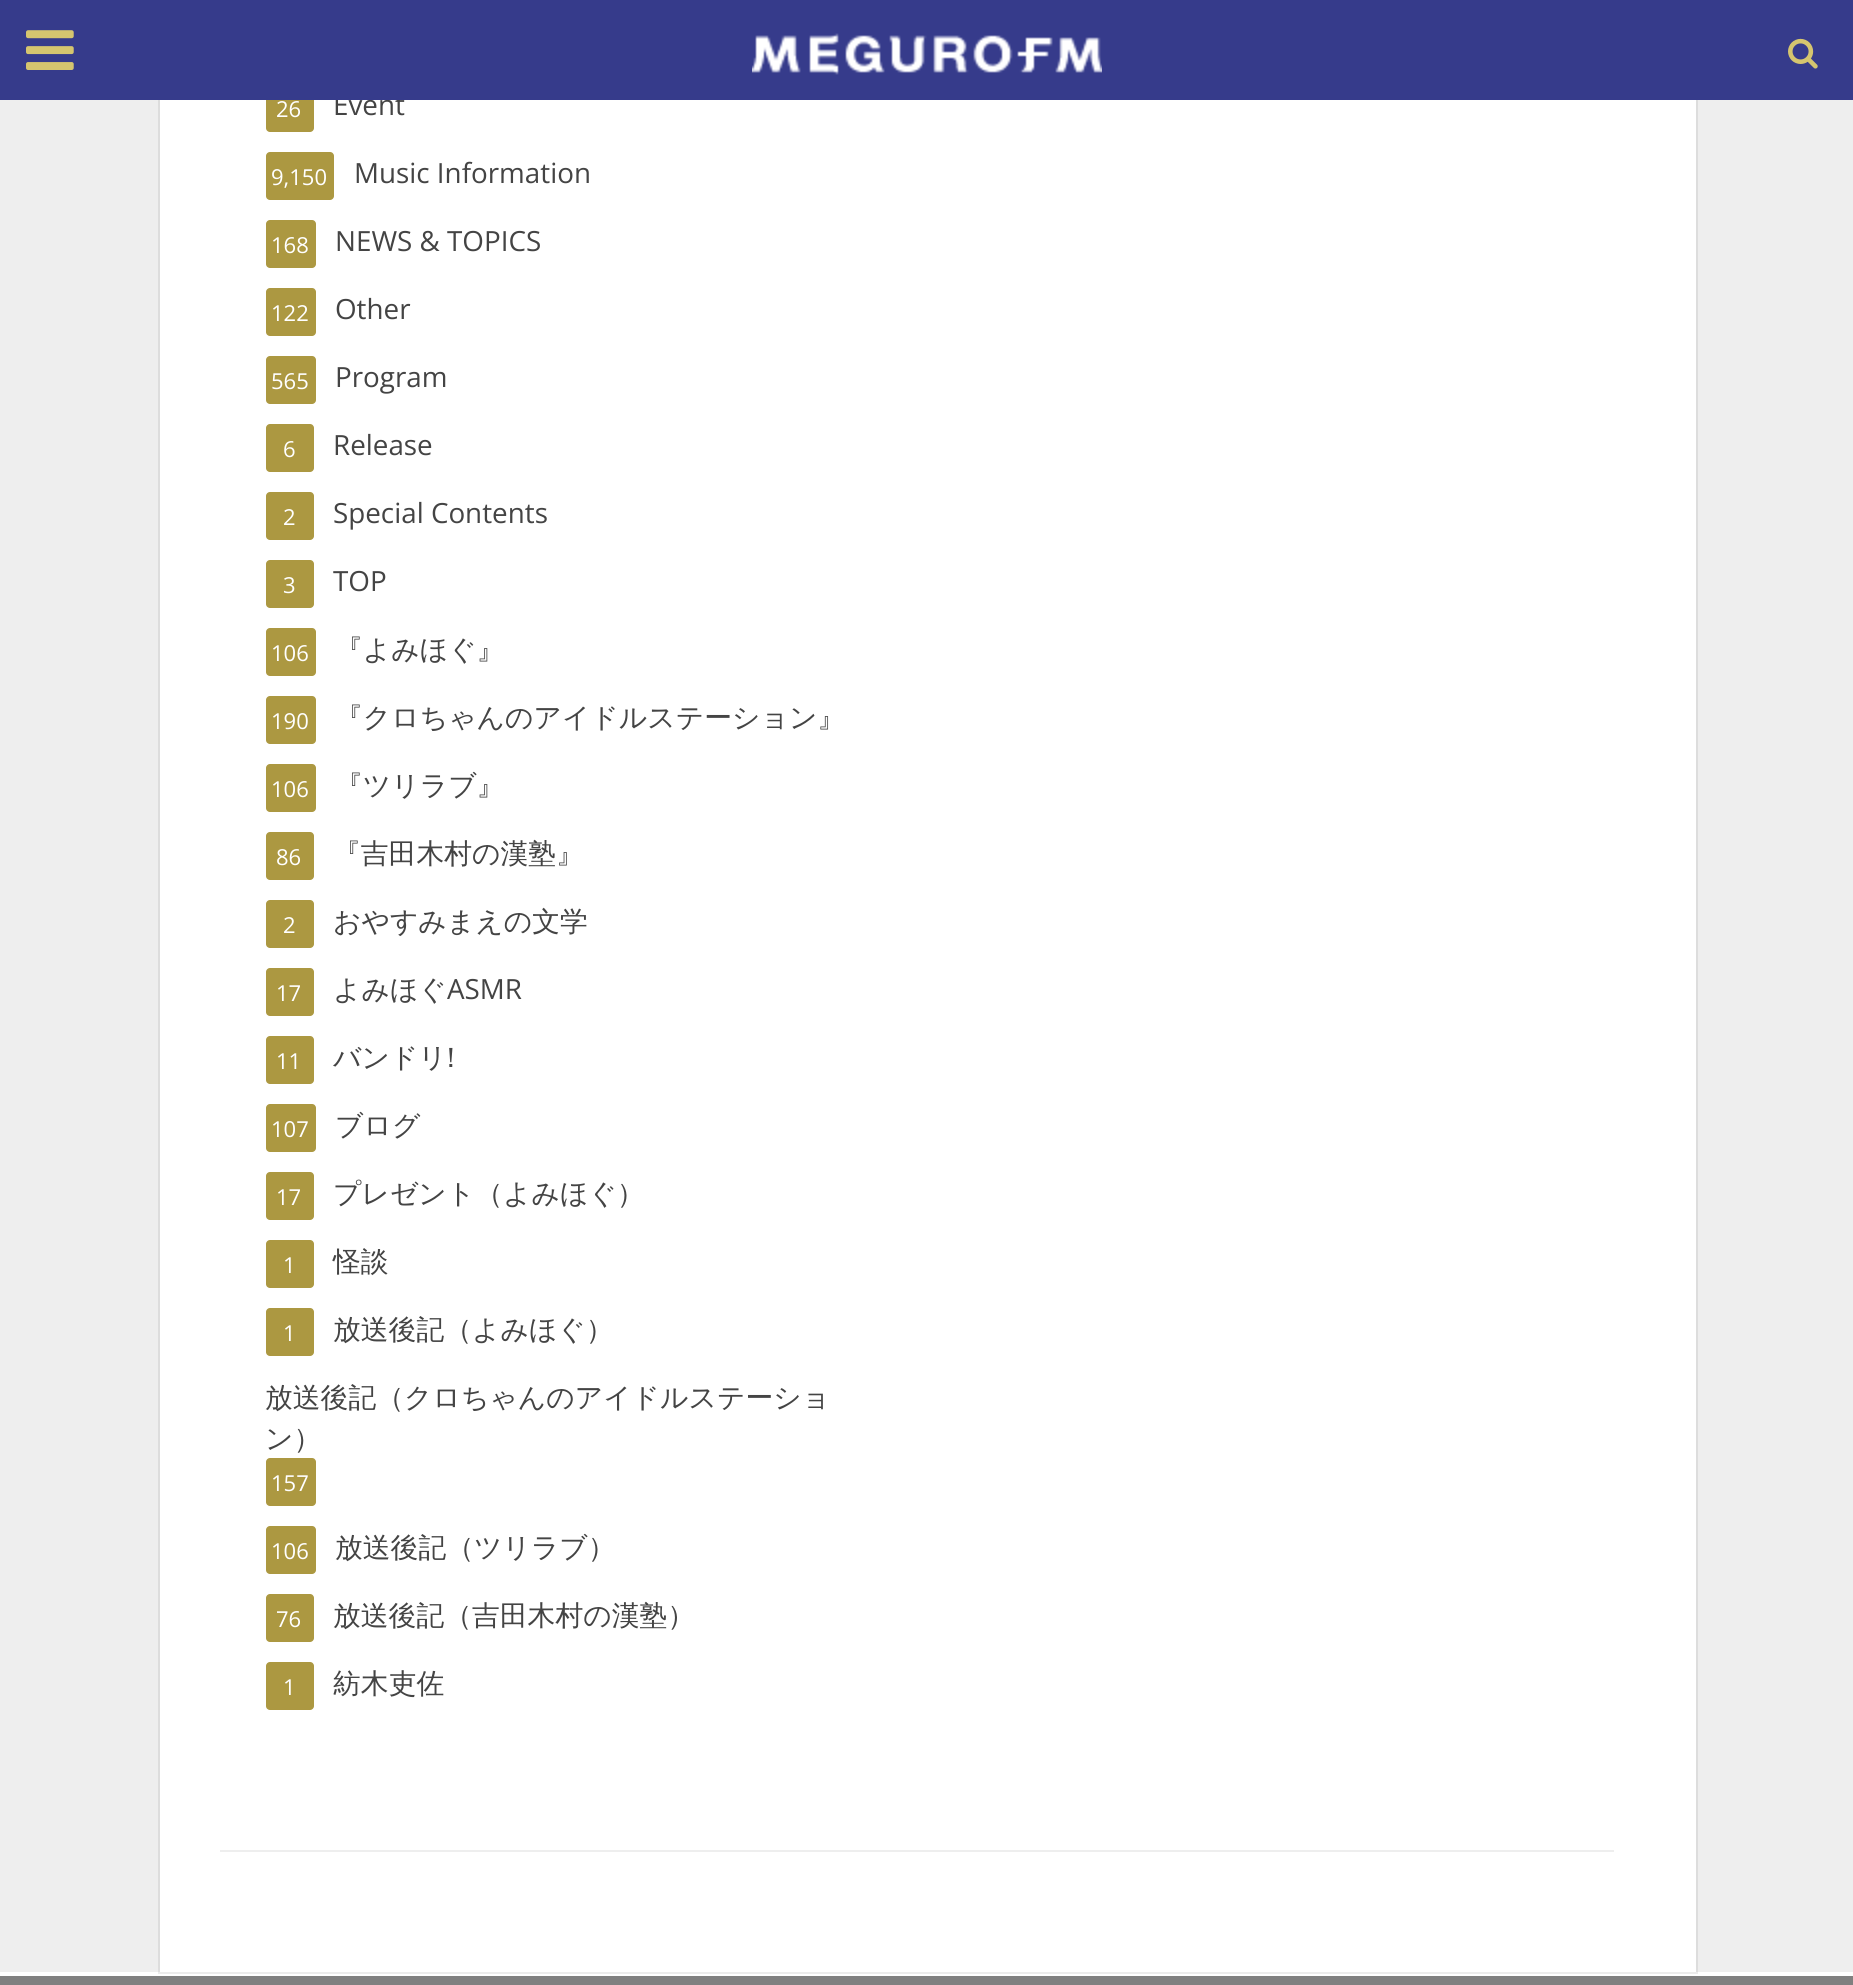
#include <cairo.h>
#include <math.h>
#include <stddef.h>

typedef struct { const char *family; double size; int italic, bold; unsigned color; } style_t;
static cairo_t *ctx;

static void ink(unsigned color) {
    cairo_set_source_rgb(ctx, (color >> 16) / 255.0, (color >> 8 & 255) / 255.0, (color & 255) / 255.0);
}

static void write(double x, double y, const char *s, const style_t *st) {
    cairo_select_font_face(ctx, st->family, st->italic ? CAIRO_FONT_SLANT_ITALIC : CAIRO_FONT_SLANT_NORMAL,
        st->bold ? CAIRO_FONT_WEIGHT_BOLD : CAIRO_FONT_WEIGHT_NORMAL);
    cairo_set_font_size(ctx, st->size);
    ink(st->color);
    cairo_move_to(ctx, x, y);
    cairo_show_text(ctx, s);
}

static void block(double x, double y, double w, double h, unsigned color) {
    ink(color);
    cairo_rectangle(ctx, x, y, w, h);
    cairo_fill(ctx);
}

static void round_path(double x, double y, double w, double h, double r) {
    cairo_new_sub_path(ctx);
    cairo_arc(ctx, x + w - r, y + h - r, r, 0, M_PI / 2);
    cairo_arc(ctx, x + r, y + h - r, r, M_PI / 2, M_PI);
    cairo_arc(ctx, x + r, y + r, r, M_PI, 1.5 * M_PI);
    cairo_arc(ctx, x + w - r, y + r, r, 1.5 * M_PI, 2 * M_PI);
    cairo_close_path(ctx);
}

static void paste(const char *path, double x, double y, double w, double h) {
    cairo_surface_t *image = cairo_image_surface_create_from_png(path);
    cairo_save(ctx);
    cairo_set_source_surface(ctx, image, x, y);
    cairo_rectangle(ctx, x, y, w, h);
    cairo_fill(ctx);
    cairo_restore(ctx);
    cairo_surface_destroy(image);
}

static const style_t s1 = {"Open Sans", 27.8, 0, 0, 0x444444};
static const style_t s2 = {"Open Sans", 22, 0, 0, 0xffffff};
static const style_t s3 = {"WenQuanYi Zen Hei Medium", 27.8, 0, 0, 0x444444};

int main(void) {
    cairo_surface_t *surface = cairo_image_surface_create(CAIRO_FORMAT_RGB24, 1853, 1985);
    ctx = cairo_create(surface);
    cairo_font_options_t *options = cairo_font_options_create();
    cairo_font_options_set_hint_metrics(options, CAIRO_HINT_METRICS_OFF);
    cairo_font_options_set_hint_style(options, CAIRO_HINT_STYLE_NONE);
    cairo_set_font_options(ctx, options);
    cairo_set_miter_limit(ctx, 4);
    ink(0xeeeeee);
    cairo_paint(ctx);
    block(0, 1972, 1853, 4, 0xffffff);
    cairo_rectangle(ctx, 159, -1, 1538, 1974);
    cairo_set_source_rgba(ctx, 0.267, 0.267, 0.267, 0.1);
    cairo_stroke(ctx);
    block(160, 100, 1536, 1872, 0xffffff);
    ink(0xac9841);
    round_path(266, 84, 48, 48, 4);
    cairo_fill(ctx);
    write(333, 115, "Event", &s1);
    block(0, 0, 1853, 100, 0x363b8b);
    paste("pic1.png", 26, 30, 48, 40);
    paste("pic2.png", 752, 33, 350, 42);
    paste("pic3.png", 1788, 38, 30, 31);
    block(220, 1850, 1394, 2, 0xeeeeee);
    write(276, 117, "26", &s2);
    ink(0xac9841);
    round_path(266, 152, 68, 48, 4);
    cairo_fill(ctx);
    write(271, 185, "9,150", &s2);
    write(354, 183, "Music Information", &s1);
    ink(0xac9841);
    round_path(266, 220, 50, 48, 4);
    cairo_fill(ctx);
    write(271, 253, "168", &s2);
    write(335, 251, "NEWS & TOPICS", &s1);
    ink(0xac9841);
    round_path(266, 288, 50, 48, 4);
    cairo_fill(ctx);
    write(271, 321, "122", &s2);
    write(335, 319, "Other", &s1);
    ink(0xac9841);
    round_path(266, 356, 50, 48, 4);
    cairo_fill(ctx);
    write(271, 389, "565", &s2);
    write(335, 387, "Program", &s1);
    ink(0xac9841);
    round_path(266, 424, 48, 48, 4);
    cairo_fill(ctx);
    write(283, 457, "6", &s2);
    write(333, 455, "Release", &s1);
    ink(0xac9841);
    round_path(266, 492, 48, 48, 4);
    cairo_fill(ctx);
    write(283, 525, "2", &s2);
    write(333, 523, "Special Contents", &s1);
    ink(0xac9841);
    round_path(266, 560, 48, 48, 4);
    cairo_fill(ctx);
    write(283, 593, "3", &s2);
    write(333, 591, "TOP", &s1);
    ink(0xac9841);
    round_path(266, 628, 50, 48, 4);
    cairo_fill(ctx);
    write(271, 661, "106", &s2);
    write(335, 659, "『よみほぐ』", &s3);
    ink(0xac9841);
    round_path(266, 696, 50, 48, 4);
    cairo_fill(ctx);
    write(271, 729, "190", &s2);
    write(335, 727, "『クロちゃんのアイドルステーション』", &s3);
    ink(0xac9841);
    round_path(266, 764, 50, 48, 4);
    cairo_fill(ctx);
    write(271, 797, "106", &s2);
    write(335, 795, "『ツリラブ』", &s3);
    ink(0xac9841);
    round_path(266, 832, 48, 48, 4);
    cairo_fill(ctx);
    write(276, 865, "86", &s2);
    write(333, 863, "『吉田木村の漢塾』", &s3);
    ink(0xac9841);
    round_path(266, 900, 48, 48, 4);
    cairo_fill(ctx);
    write(283, 933, "2", &s2);
    write(333, 931, "おやすみまえの文学", &s3);
    ink(0xac9841);
    round_path(266, 968, 48, 48, 4);
    cairo_fill(ctx);
    write(276, 1001, "17", &s2);
    write(333, 999, "よみほぐ", &s3);
    write(447, 999, "ASMR", &s1);
    ink(0xac9841);
    round_path(266, 1036, 48, 48, 4);
    cairo_fill(ctx);
    write(276, 1069, "11", &s2);
    write(333, 1067, "バンドリ!", &s3);
    ink(0xac9841);
    round_path(266, 1104, 50, 48, 4);
    cairo_fill(ctx);
    write(271, 1137, "107", &s2);
    write(335, 1135, "ブログ", &s3);
    ink(0xac9841);
    round_path(266, 1172, 48, 48, 4);
    cairo_fill(ctx);
    write(276, 1205, "17", &s2);
    write(333, 1203, "プレゼント（よみほぐ）", &s3);
    ink(0xac9841);
    round_path(266, 1240, 48, 48, 4);
    cairo_fill(ctx);
    write(283, 1273, "1", &s2);
    write(333, 1271, "怪談", &s3);
    ink(0xac9841);
    round_path(266, 1308, 48, 48, 4);
    cairo_fill(ctx);
    write(283, 1341, "1", &s2);
    write(333, 1339, "放送後記（よみほぐ）", &s3);
    write(265, 1407, "放送後記（クロちゃんのアイドルステーショ", &s3);
    write(265, 1448, "ン）", &s3);
    ink(0xac9841);
    round_path(266, 1458, 50, 48, 4);
    cairo_fill(ctx);
    write(271, 1491, "157", &s2);
    ink(0xac9841);
    round_path(266, 1526, 50, 48, 4);
    cairo_fill(ctx);
    write(271, 1559, "106", &s2);
    write(335, 1557, "放送後記（ツリラブ）", &s3);
    ink(0xac9841);
    round_path(266, 1594, 48, 48, 4);
    cairo_fill(ctx);
    write(276, 1627, "76", &s2);
    write(333, 1625, "放送後記（吉田木村の漢塾）", &s3);
    ink(0xac9841);
    round_path(266, 1662, 48, 48, 4);
    cairo_fill(ctx);
    write(283, 1695, "1", &s2);
    write(333, 1693, "紡木吏佐", &s3);
    block(0, 1976, 1853, 9, 0x808080);
    cairo_surface_write_to_png(surface, "screenshot.png");
    cairo_font_options_destroy(options);
    cairo_destroy(ctx);
    cairo_surface_destroy(surface);
    return 0;
}
